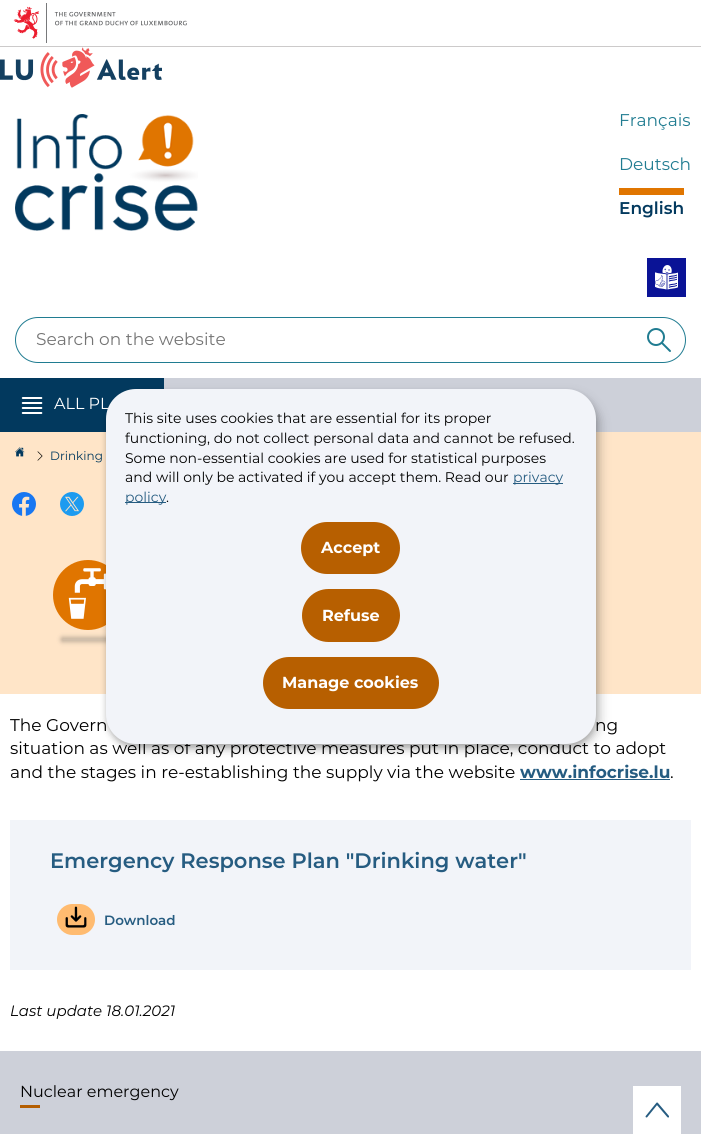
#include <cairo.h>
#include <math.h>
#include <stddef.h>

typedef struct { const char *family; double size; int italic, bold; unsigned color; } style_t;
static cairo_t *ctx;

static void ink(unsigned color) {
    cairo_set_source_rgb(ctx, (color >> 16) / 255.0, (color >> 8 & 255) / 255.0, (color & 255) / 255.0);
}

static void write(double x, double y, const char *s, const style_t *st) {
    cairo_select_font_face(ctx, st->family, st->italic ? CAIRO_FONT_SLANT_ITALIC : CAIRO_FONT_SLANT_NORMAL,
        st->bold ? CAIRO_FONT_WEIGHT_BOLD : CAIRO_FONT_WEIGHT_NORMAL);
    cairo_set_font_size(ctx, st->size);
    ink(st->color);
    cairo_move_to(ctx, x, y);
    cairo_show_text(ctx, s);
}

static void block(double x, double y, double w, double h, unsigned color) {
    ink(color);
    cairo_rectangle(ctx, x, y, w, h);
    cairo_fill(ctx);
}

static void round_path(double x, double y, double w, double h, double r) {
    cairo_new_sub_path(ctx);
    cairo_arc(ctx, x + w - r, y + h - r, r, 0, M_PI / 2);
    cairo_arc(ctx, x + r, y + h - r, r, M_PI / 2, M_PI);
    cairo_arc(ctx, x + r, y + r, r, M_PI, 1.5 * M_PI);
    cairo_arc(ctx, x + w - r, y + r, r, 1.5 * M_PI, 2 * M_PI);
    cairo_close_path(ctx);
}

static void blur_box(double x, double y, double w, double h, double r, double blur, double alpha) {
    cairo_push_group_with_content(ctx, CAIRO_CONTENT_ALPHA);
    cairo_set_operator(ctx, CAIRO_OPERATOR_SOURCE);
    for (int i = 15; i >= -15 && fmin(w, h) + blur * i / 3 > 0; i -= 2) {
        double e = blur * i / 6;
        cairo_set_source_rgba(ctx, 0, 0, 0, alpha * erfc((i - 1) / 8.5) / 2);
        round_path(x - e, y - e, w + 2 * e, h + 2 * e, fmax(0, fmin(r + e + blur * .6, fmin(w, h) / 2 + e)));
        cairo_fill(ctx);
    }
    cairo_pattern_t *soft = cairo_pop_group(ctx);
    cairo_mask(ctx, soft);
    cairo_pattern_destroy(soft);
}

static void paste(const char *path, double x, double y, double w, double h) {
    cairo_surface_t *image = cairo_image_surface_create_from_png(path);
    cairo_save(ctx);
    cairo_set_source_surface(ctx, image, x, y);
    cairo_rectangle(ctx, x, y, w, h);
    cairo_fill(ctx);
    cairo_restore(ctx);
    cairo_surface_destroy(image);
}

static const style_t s1 = {"Montserrat", 17, 0, 0, 0x207c91};
static const style_t s2 = {"Montserrat SemiBold", 17, 0, 0, 0x02395e};
static const style_t s3 = {"Montserrat", 17, 0, 0, 0x757575};
static const style_t s4 = {"Montserrat", 16, 0, 0, 0xffffff};
static const style_t s5 = {"Montserrat", 12, 0, 0, 0x02395e};
static const style_t s6 = {"Montserrat", 17, 0, 0, 0x000000};
static const style_t s7 = {"Montserrat", 17, 0, 1, 0x265c81};
static const style_t s8 = {"Montserrat SemiBold", 21, 0, 0, 0x265c81};
static const style_t s9 = {"Montserrat SemiBold", 13.5, 0, 0, 0x265c81};
static const style_t s10 = {"Montserrat", 15, 1, 0, 0x000000};
static const style_t s11 = {"Montserrat", 16, 0, 0, 0x000000};
static const style_t s12 = {"Montserrat", 14, 0, 0, 0x000000};
static const style_t s13 = {"Montserrat", 14, 0, 0, 0x265c81};
static const style_t s14 = {"Montserrat", 16, 0, 1, 0xffffff};

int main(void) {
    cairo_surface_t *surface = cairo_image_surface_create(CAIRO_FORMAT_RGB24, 701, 1134);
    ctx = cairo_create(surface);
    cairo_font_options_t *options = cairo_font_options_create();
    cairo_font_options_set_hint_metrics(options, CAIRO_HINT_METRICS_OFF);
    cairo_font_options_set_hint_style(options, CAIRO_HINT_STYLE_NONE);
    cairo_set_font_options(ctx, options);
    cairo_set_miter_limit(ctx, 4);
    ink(0xffffff);
    cairo_paint(ctx);
    block(0, 46, 701, 1, 0xcccaca);
    paste("pic1.png", 13, 3, 174, 40);
    paste("pic2.png", 0, 47, 162, 41);
    paste("pic3.png", 15, 114, 183, 117);
    write(619, 126, "Français", &s1);
    write(619, 170, "Deutsch", &s1);
    block(619, 188, 65, 7, 0xe07500);
    write(619, 214, "English", &s2);
    block(647, 258, 39, 39, 0x0a1396);
    paste("pic4.png", 655, 265, 23, 25);
    round_path(15.5, 317.5, 670, 45, 22.5);
    ink(0x207c91);
    cairo_set_line_width(ctx, 1);
    cairo_stroke(ctx);
    write(36, 345, "Search on the website", &s3);
    paste("pic5.png", 647, 328, 24, 24);
    block(0, 378, 164, 54, 0x02395e);
    paste("pic6.png", 21, 397, 22, 17);
    write(54, 409, "ALL PL", &s4);
    block(164, 378, 537, 54, 0xcdd0d9);
    block(0, 432, 701, 262, 0xffe5c8);
    ink(0xe07500);
    cairo_new_path(ctx);
    cairo_arc(ctx, 88, 595, 35, 0, 2 * M_PI);
    cairo_fill(ctx);
    paste("pic7.png", 68, 568, 38, 51);
    ink(0xd1bfab);
    blur_box(62, 638, 50, 3, 1.5, 2.5, 1);
    ink(0xc2b09b);
    blur_box(62, 638, 50, 3, 1.5, 2.5, 1);
    ink(0xd1bfab);
    cairo_new_path(ctx);
    cairo_move_to(ctx, 87, 638);
    cairo_curve_to(ctx, 101, 638, 112, 638.5, 112, 639.5);
    cairo_curve_to(ctx, 112, 640.5, 101, 641, 87, 641);
    cairo_curve_to(ctx, 73, 641, 62, 640.5, 62, 639.5);
    cairo_curve_to(ctx, 62, 638.5, 73, 638, 87, 638);
    cairo_close_path(ctx);
    cairo_fill(ctx);
    paste("pic8.png", 15, 447, 10, 10);
    paste("pic9.png", 37, 451, 6, 10);
    write(50, 460, "Drinking", &s5);
    paste("pic10.png", 12, 492, 24, 24);
    paste("pic11.png", 60, 492, 24, 24);
    write(10, 731, "The Govern", &s6);
    write(595, 731, "ng", &s6);
    write(10, 754, "situation as well as of any protective measures put in place, conduct to adopt", &s6);
    write(10, 778, "and the stages in re-establishing the supply via the website", &s6);
    write(520, 778, "www.infocrise.lu", &s7);
    block(520, 779, 150, 1, 0x265c81);
    write(670, 778, ".", &s6);
    block(10, 820, 681, 150, 0xf2f4f9);
    write(50, 868, "Emergency Response Plan \"Drinking water\"", &s8);
    ink(0xffbb70);
    round_path(57, 904, 38, 31, 15.5);
    cairo_fill(ctx);
    paste("pic12.png", 65, 906, 22, 22);
    write(104, 925, "Download", &s9);
    write(10, 1016, "Last update 18.01.2021", &s10);
    block(0, 1051, 701, 83, 0xcdd0d9);
    write(20, 1097, "Nuclear emergency", &s11);
    block(20, 1105, 20, 3, 0xb45e01);
    block(633, 1086, 48, 48, 0xffffff);
    paste("pic13.png", 645, 1102, 24, 16);
    ink(0x000000);
    blur_box(111, 394, 490, 355, 30, 5, 0.19);
    blur_box(106, 393, 490, 355, 30, 3, 0.2);
    ink(0xf2f4f9);
    round_path(106, 389, 490, 355, 30);
    cairo_fill(ctx);
    write(125, 423, "This site uses cookies that are essential for its proper", &s12);
    write(125, 443, "functioning, do not collect personal data and cannot be refused.", &s12);
    write(125, 463, "Some non-essential cookies are used for statistical purposes", &s12);
    write(125, 482, "and will only be activated if you accept them. Read our", &s12);
    block(513, 483, 50, 1, 0x265c81);
    write(513, 482, "privacy", &s13);
    block(125, 502, 41, 1, 0x265c81);
    write(125, 502, "policy", &s13);
    write(166, 502, ".", &s12);
    ink(0xb75f00);
    round_path(301, 522, 99, 52, 26);
    cairo_fill(ctx);
    write(321, 553, "Accept", &s14);
    ink(0xb75f00);
    round_path(302, 589, 98, 53, 26.5);
    cairo_fill(ctx);
    write(322, 621, "Refuse", &s14);
    ink(0xb75f00);
    round_path(263, 657, 176, 52, 26);
    cairo_fill(ctx);
    write(282, 688, "Manage cookies", &s14);
    cairo_surface_write_to_png(surface, "screenshot.png");
    cairo_font_options_destroy(options);
    cairo_destroy(ctx);
    cairo_surface_destroy(surface);
    return 0;
}
